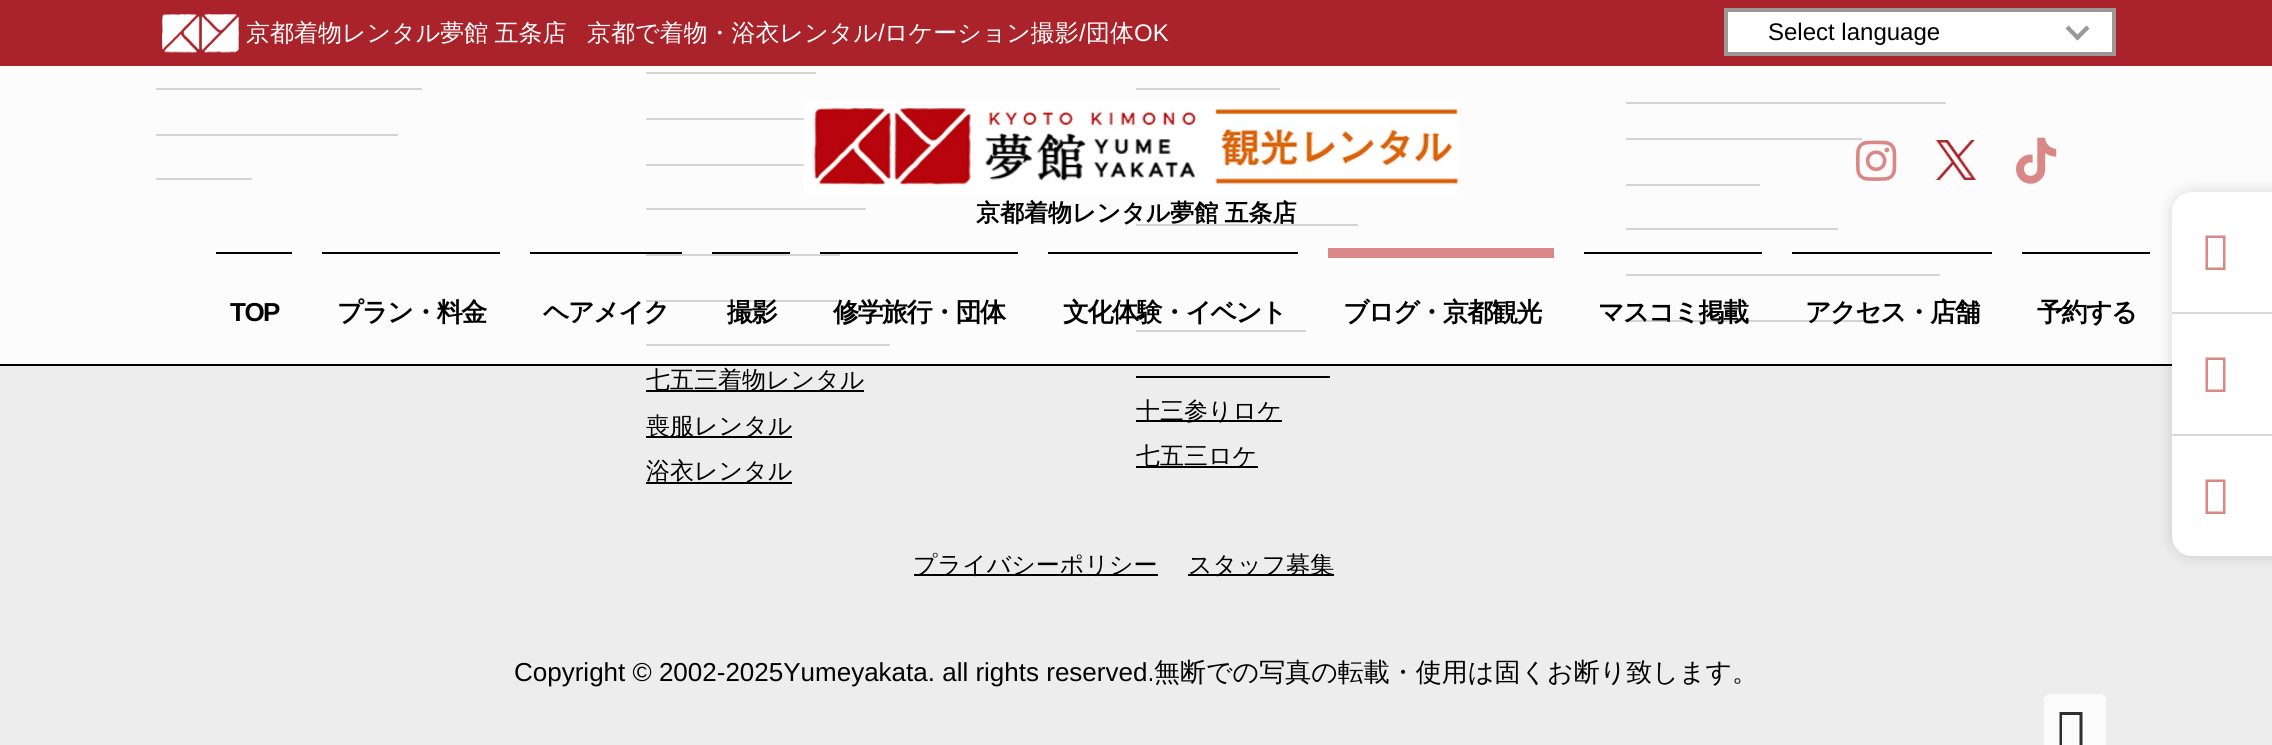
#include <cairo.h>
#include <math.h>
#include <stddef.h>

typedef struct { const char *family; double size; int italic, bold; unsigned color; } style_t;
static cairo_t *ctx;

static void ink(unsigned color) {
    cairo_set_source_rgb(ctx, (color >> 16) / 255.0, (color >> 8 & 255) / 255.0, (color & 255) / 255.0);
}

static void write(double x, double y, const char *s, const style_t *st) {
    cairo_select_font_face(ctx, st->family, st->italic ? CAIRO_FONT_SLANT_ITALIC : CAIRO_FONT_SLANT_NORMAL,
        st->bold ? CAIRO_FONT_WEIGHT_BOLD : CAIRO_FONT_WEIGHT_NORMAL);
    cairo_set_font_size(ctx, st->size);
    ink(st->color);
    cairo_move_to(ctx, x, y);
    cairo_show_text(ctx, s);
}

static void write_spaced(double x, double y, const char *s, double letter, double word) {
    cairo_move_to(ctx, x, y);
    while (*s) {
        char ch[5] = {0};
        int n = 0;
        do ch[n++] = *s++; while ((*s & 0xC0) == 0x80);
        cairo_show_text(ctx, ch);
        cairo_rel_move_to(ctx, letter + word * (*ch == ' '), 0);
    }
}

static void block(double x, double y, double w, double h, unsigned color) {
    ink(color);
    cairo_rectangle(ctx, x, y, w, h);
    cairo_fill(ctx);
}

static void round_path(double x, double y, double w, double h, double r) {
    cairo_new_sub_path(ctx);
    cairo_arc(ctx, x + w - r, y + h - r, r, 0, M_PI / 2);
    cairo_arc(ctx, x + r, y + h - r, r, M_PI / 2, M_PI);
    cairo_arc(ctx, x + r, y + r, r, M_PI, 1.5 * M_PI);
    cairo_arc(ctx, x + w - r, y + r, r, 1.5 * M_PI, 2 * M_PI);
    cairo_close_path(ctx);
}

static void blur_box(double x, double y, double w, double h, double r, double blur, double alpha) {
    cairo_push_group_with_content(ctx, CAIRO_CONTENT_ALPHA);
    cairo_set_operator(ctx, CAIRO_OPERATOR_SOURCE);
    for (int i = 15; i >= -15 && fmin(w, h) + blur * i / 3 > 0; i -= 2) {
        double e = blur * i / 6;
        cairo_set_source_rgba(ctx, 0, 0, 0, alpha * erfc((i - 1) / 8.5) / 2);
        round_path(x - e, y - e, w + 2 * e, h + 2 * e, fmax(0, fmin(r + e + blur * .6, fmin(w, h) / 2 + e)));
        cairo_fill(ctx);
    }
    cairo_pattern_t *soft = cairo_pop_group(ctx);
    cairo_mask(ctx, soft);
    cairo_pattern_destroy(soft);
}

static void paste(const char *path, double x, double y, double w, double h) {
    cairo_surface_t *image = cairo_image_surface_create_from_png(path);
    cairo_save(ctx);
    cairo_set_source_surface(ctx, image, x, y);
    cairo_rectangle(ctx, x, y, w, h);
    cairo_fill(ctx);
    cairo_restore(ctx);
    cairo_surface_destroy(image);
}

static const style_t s1 = {"WenQuanYi Zen Hei Medium", 24, 0, 0, 0xffffff};
static const style_t s2 = {"Liberation Sans", 24, 0, 0, 0xffffff};
static const style_t s3 = {"Liberation Sans", 24, 0, 0, 0x000000};
static const style_t s4 = {"WenQuanYi Zen Hei Medium", 24, 0, 0, 0x000000};
static const style_t s5 = {"Liberation Sans", 26, 0, 0, 0x000000};
static const style_t s6 = {"WenQuanYi Zen Hei Medium", 26, 0, 0, 0x000000};

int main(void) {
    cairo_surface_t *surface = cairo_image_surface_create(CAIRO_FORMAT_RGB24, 2272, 745);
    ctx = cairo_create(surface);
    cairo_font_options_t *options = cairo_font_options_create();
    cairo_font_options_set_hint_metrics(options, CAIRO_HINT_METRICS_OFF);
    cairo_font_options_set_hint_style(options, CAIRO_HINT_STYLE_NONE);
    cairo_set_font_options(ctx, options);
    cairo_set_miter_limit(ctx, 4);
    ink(0xededed);
    cairo_paint(ctx);
    block(0, 0, 2272, 66, 0xaa222a);
    paste("pic1.png", 162, 14, 78, 39);
    cairo_select_font_face(ctx, "WenQuanYi Zen Hei Medium", CAIRO_FONT_SLANT_NORMAL, CAIRO_FONT_WEIGHT_NORMAL);
    cairo_set_font_size(ctx, 24);
    ink(0xffffff);
    write_spaced(246, 41, "京都着物レンタル夢館 五条店", 0, -1);
    write(587, 41, "京都で着物・浴衣レンタル", &s1);
    write(878, 41, "/", &s2);
    write(884, 41, "ロケーション撮影", &s1);
    write(1079, 41, "/", &s2);
    write(1086, 41, "団体", &s1);
    write(1134, 41, "OK", &s2);
    cairo_rectangle(ctx, 1726, 10, 388, 44);
    cairo_fill_preserve(ctx);
    ink(0x9a9899);
    cairo_set_line_width(ctx, 4);
    cairo_stroke(ctx);
    write(1768, 40, "Select language", &s3);
    ink(0x9a9899);
    cairo_new_path(ctx);
    cairo_move_to(ctx, 2086.5, 25.5);
    cairo_line_to(ctx, 2089.5, 28.5);
    cairo_line_to(ctx, 2077.5, 40.5);
    cairo_line_to(ctx, 2074.5, 37.5);
    cairo_close_path(ctx);
    cairo_fill(ctx);
    cairo_new_path(ctx);
    cairo_move_to(ctx, 2068.5, 25.5);
    cairo_line_to(ctx, 2080.5, 37.5);
    cairo_line_to(ctx, 2077.5, 40.5);
    cairo_line_to(ctx, 2065.5, 28.5);
    cairo_close_path(ctx);
    cairo_fill(ctx);
    block(156, 88, 266, 2, 0x000000);
    block(156, 134, 242, 2, 0x000000);
    block(156, 178, 96, 2, 0x000000);
    block(1626, 102, 320, 2, 0x000000);
    block(1626, 138, 236, 2, 0x000000);
    block(1626, 184, 134, 2, 0x000000);
    block(1626, 228, 212, 2, 0x000000);
    block(1626, 274, 314, 2, 0x000000);
    block(1626, 320, 254, 2, 0x000000);
    block(646, 72, 170, 2, 0x000000);
    block(646, 118, 159, 2, 0x000000);
    block(646, 164, 159, 2, 0x000000);
    block(646, 208, 220, 2, 0x000000);
    block(646, 254, 194, 2, 0x000000);
    block(646, 300, 194, 2, 0x000000);
    block(646, 344, 244, 2, 0x000000);
    block(1136, 88, 144, 2, 0x000000);
    block(1136, 224, 222, 2, 0x000000);
    block(1136, 330, 170, 2, 0x000000);
    cairo_set_source_rgba(ctx, 1, 1, 1, 0.83);
    cairo_rectangle(ctx, 0, 66, 2272, 298);
    cairo_fill(ctx);
    block(0, 364, 2172, 2, 0x000000);
    paste("pic2.png", 1856, 140, 41, 41);
    paste("pic3.png", 1935, 140, 41, 40);
    paste("pic4.png", 2016, 137, 41, 47);
    paste("pic5.png", 803, 100, 656, 96);
    cairo_select_font_face(ctx, "WenQuanYi Zen Hei", CAIRO_FONT_SLANT_NORMAL, CAIRO_FONT_WEIGHT_BOLD);
    write_spaced(976, 221, "京都着物レンタル夢館 五条店", 0, -1);
    block(216, 252, 76, 2, 0x000000);
    cairo_select_font_face(ctx, "Liberation Sans", CAIRO_FONT_SLANT_NORMAL, CAIRO_FONT_WEIGHT_BOLD);
    cairo_set_font_size(ctx, 26);
    write_spaced(230, 321, "TOP", -1.5, 0);
    block(322, 252, 178, 2, 0x000000);
    cairo_select_font_face(ctx, "WenQuanYi Zen Hei", CAIRO_FONT_SLANT_NORMAL, CAIRO_FONT_WEIGHT_BOLD);
    write_spaced(337, 321, "プラン・料金", -1.5, 0);
    block(530, 252, 152, 2, 0x000000);
    write_spaced(543, 321, "ヘアメイク", -1.5, 0);
    block(712, 252, 78, 2, 0x000000);
    write_spaced(727, 321, "撮影", -1.5, 0);
    block(820, 252, 198, 2, 0x000000);
    write_spaced(833, 321, "修学旅行・団体", -1.5, 0);
    block(1048, 252, 250, 2, 0x000000);
    write_spaced(1063, 321, "文化体験・イベント", -1.5, 0);
    block(1328, 248, 226, 10, 0xd98787);
    ink(0x000000);
    write_spaced(1343, 321, "ブログ・京都観光", -1.5, 0);
    block(1584, 252, 178, 2, 0x000000);
    write_spaced(1598, 321, "マスコミ掲載", -1.5, 0);
    block(1792, 252, 200, 2, 0x000000);
    write_spaced(1805, 321, "アクセス・店舗", -1.5, 0);
    block(2022, 252, 128, 2, 0x000000);
    write_spaced(2037, 321, "予約する", -1.5, 0);
    ink(0x000000);
    blur_box(2172, 192, 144, 364, 20, 8, 0.15);
    ink(0xffffff);
    cairo_new_path(ctx);
    cairo_move_to(ctx, 2192, 192);
    cairo_line_to(ctx, 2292, 192);
    cairo_line_to(ctx, 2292, 556);
    cairo_line_to(ctx, 2192, 556);
    cairo_curve_to(ctx, 2181, 556, 2172, 547, 2172, 536);
    cairo_line_to(ctx, 2172, 212);
    cairo_curve_to(ctx, 2172, 201, 2181, 192, 2192, 192);
    cairo_close_path(ctx);
    cairo_fill(ctx);
    ink(0xd98787);
    cairo_new_path(ctx);
    cairo_move_to(ctx, 2205.5, 270);
    cairo_line_to(ctx, 2205.5, 235.5);
    cairo_line_to(ctx, 2225.5, 235.5);
    cairo_line_to(ctx, 2225.5, 270);
    cairo_close_path(ctx);
    cairo_move_to(ctx, 2208, 267.5);
    cairo_line_to(ctx, 2223, 267.5);
    cairo_line_to(ctx, 2223, 238);
    cairo_line_to(ctx, 2208, 238);
    cairo_close_path(ctx);
    cairo_fill(ctx);
    block(2172, 312, 100, 2, 0xd9d9d9);
    ink(0xd98787);
    cairo_new_path(ctx);
    cairo_move_to(ctx, 2205.5, 392);
    cairo_line_to(ctx, 2205.5, 357.5);
    cairo_line_to(ctx, 2225.5, 357.5);
    cairo_line_to(ctx, 2225.5, 392);
    cairo_close_path(ctx);
    cairo_move_to(ctx, 2208, 389.5);
    cairo_line_to(ctx, 2223, 389.5);
    cairo_line_to(ctx, 2223, 360);
    cairo_line_to(ctx, 2208, 360);
    cairo_close_path(ctx);
    cairo_fill(ctx);
    block(2172, 434, 100, 2, 0xd9d9d9);
    ink(0xd98787);
    cairo_new_path(ctx);
    cairo_move_to(ctx, 2205.5, 514);
    cairo_line_to(ctx, 2205.5, 479.5);
    cairo_line_to(ctx, 2225.5, 479.5);
    cairo_line_to(ctx, 2225.5, 514);
    cairo_close_path(ctx);
    cairo_move_to(ctx, 2208, 511.5);
    cairo_line_to(ctx, 2223, 511.5);
    cairo_line_to(ctx, 2223, 482);
    cairo_line_to(ctx, 2208, 482);
    cairo_close_path(ctx);
    cairo_fill(ctx);
    block(646, 390, 218, 2, 0x000000);
    write(646, 388, "七五三着物レンタル", &s4);
    block(646, 436, 146, 2, 0x000000);
    write(646, 434, "喪服レンタル", &s4);
    block(646, 482, 146, 2, 0x000000);
    write(646, 479, "浴衣レンタル", &s4);
    block(1136, 376, 194, 2, 0x000000);
    block(1136, 420, 146, 2, 0x000000);
    write(1136, 419, "十三参りロケ", &s4);
    block(1136, 466, 122, 2, 0x000000);
    write(1136, 464, "七五三ロケ", &s4);
    block(914, 574, 244, 2, 0x000000);
    write(913, 573, "プライバシーポリシー", &s4);
    block(1188, 574, 146, 2, 0x000000);
    write(1188, 573, "スタッフ募集", &s4);
    write(514, 681, "Copyright © 2002-2025Yumeyakata. all rights reserved.", &s5);
    write(1154, 681, "無断での写真の転載・使用は固くお断り致します。", &s6);
    ink(0xfbfbfb);
    round_path(2044, 694, 62, 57, 6);
    cairo_fill(ctx);
    ink(0x2f2f2f);
    cairo_new_path(ctx);
    cairo_move_to(ctx, 2059.5, 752);
    cairo_line_to(ctx, 2059.5, 712);
    cairo_line_to(ctx, 2082.5, 712);
    cairo_line_to(ctx, 2082.5, 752);
    cairo_close_path(ctx);
    cairo_move_to(ctx, 2062, 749);
    cairo_line_to(ctx, 2079.5, 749);
    cairo_line_to(ctx, 2079.5, 715);
    cairo_line_to(ctx, 2062, 715);
    cairo_close_path(ctx);
    cairo_fill(ctx);
    cairo_surface_write_to_png(surface, "screenshot.png");
    cairo_font_options_destroy(options);
    cairo_destroy(ctx);
    cairo_surface_destroy(surface);
    return 0;
}
